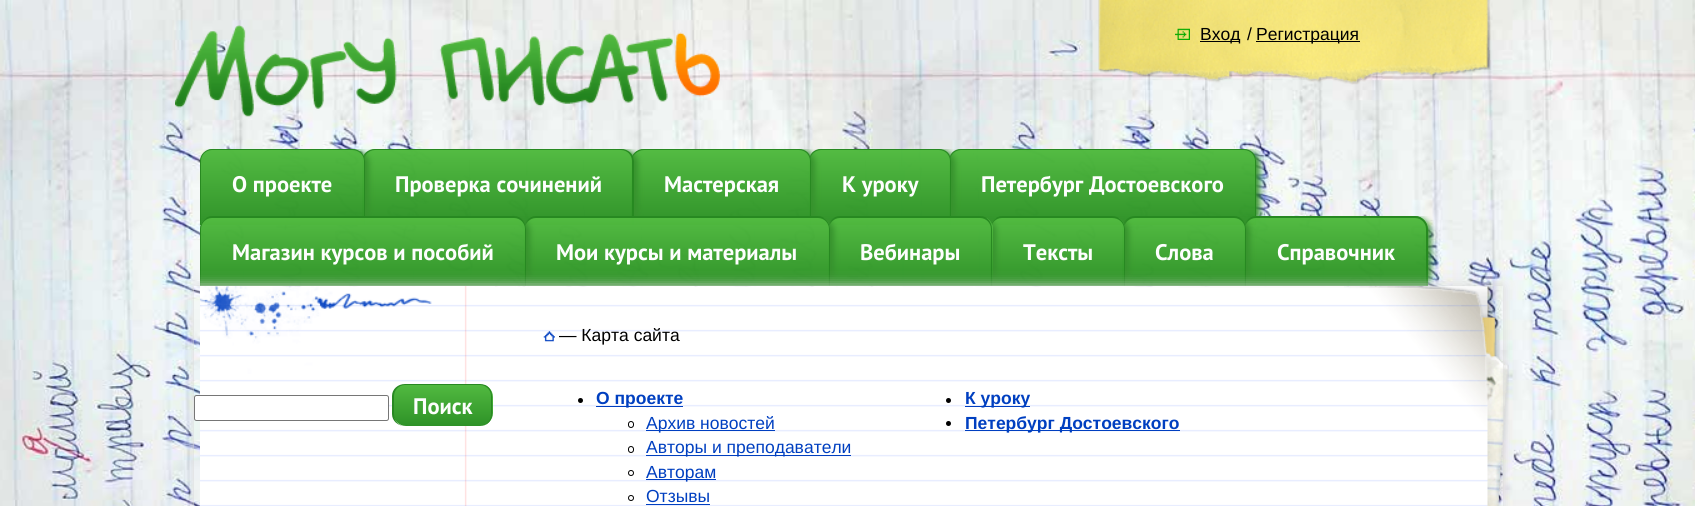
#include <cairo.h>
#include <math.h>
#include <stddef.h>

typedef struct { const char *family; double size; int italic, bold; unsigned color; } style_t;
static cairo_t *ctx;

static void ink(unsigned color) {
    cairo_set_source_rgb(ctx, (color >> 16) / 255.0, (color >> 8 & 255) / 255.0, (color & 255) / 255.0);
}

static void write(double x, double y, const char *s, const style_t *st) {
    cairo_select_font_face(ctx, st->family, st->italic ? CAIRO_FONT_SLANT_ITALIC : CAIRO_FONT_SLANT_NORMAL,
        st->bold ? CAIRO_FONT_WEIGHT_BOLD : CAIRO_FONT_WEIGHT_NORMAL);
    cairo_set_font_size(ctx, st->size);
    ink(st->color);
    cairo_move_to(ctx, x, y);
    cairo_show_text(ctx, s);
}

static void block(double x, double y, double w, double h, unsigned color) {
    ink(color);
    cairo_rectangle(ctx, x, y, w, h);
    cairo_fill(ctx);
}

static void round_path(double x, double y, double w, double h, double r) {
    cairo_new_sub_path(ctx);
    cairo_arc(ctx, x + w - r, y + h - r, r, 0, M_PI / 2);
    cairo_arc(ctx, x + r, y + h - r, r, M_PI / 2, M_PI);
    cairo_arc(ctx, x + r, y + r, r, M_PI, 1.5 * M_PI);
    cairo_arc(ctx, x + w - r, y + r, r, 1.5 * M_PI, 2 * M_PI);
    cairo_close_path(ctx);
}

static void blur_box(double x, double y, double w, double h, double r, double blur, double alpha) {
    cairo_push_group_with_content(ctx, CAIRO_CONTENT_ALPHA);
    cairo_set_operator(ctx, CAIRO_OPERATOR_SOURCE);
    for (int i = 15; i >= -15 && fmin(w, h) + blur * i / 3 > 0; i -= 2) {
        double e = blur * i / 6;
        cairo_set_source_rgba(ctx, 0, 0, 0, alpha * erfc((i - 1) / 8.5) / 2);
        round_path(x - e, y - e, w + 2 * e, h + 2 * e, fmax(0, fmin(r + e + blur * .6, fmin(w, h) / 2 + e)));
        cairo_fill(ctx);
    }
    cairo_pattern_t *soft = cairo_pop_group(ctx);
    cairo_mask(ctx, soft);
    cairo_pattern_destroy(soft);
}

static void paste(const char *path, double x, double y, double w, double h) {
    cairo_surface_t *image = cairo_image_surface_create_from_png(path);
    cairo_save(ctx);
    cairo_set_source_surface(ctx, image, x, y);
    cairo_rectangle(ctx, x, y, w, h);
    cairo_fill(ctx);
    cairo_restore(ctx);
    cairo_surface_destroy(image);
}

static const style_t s1 = {"Liberation Sans", 17.5, 0, 0, 0x000000};
static const style_t s2 = {"PT Sans", 22.5, 0, 1, 0xfdfefd};
static const style_t s3 = {"Liberation Sans", 17.5, 0, 1, 0x003fc0};
static const style_t s4 = {"Liberation Sans", 17.5, 0, 0, 0x003fc0};

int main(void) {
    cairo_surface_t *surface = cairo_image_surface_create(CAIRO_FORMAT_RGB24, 1695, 506);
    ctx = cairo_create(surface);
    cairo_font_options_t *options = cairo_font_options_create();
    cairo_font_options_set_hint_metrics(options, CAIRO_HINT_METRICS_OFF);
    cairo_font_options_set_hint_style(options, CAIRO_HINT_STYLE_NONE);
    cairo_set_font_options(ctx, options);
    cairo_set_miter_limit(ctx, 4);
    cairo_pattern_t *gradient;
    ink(0xffffff);
    cairo_paint(ctx);
    paste("pic1.png", 0, 0, 1695, 506);
    paste("pic2.png", 175, 25, 545, 92);
    paste("pic3.png", 1098, 0, 393, 85);
    paste("pic4.png", 1175, 28, 15, 12);
    block(1200, 41, 40, 1, 0x000000);
    write(1200, 40, "Вход", &s1);
    write(1247, 40, "/", &s1);
    block(1256, 41, 104, 1, 0x000000);
    write(1256, 40, "Регистрация", &s1);
    cairo_save(ctx);
    cairo_rectangle(ctx, 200, 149, 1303, 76);
    cairo_clip(ctx);
    cairo_set_fill_rule(ctx, CAIRO_FILL_RULE_EVEN_ODD);
    cairo_new_path(ctx);
    cairo_move_to(ctx, 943, 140);
    cairo_line_to(ctx, 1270, 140);
    cairo_line_to(ctx, 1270, 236);
    cairo_line_to(ctx, 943, 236);
    cairo_close_path(ctx);
    cairo_move_to(ctx, 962, 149);
    cairo_line_to(ctx, 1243, 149);
    cairo_curve_to(ctx, 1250, 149, 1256, 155, 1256, 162);
    cairo_line_to(ctx, 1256, 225);
    cairo_line_to(ctx, 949, 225);
    cairo_line_to(ctx, 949, 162);
    cairo_curve_to(ctx, 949, 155, 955, 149, 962, 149);
    cairo_close_path(ctx);
    cairo_clip(ctx);
    ink(0x36912d);
    blur_box(953, 150, 307, 76, 13, 3, 0.99);
    cairo_restore(ctx);
    cairo_save(ctx);
    cairo_new_path(ctx);
    cairo_move_to(ctx, 962, 149);
    cairo_line_to(ctx, 1243, 149);
    cairo_curve_to(ctx, 1250, 149, 1256, 155, 1256, 162);
    cairo_line_to(ctx, 1256, 225);
    cairo_line_to(ctx, 949, 225);
    cairo_line_to(ctx, 949, 162);
    cairo_curve_to(ctx, 949, 155, 955, 149, 962, 149);
    cairo_close_path(ctx);
    cairo_clip(ctx);
    gradient = cairo_pattern_create_linear(1103, 75, 1103, 150);
    cairo_pattern_add_color_stop_rgba(gradient, 0, 0.318, 0.729, 0.251, 0.99);
    cairo_pattern_add_color_stop_rgba(gradient, 1, 0.18, 0.569, 0.153, 0.99);
    cairo_set_source(ctx, gradient);
    cairo_pattern_destroy(gradient);
    cairo_rectangle(ctx, 949, 149, 307, 1);
    cairo_fill(ctx);
    gradient = cairo_pattern_create_linear(1103, 150, 1103, 225);
    cairo_pattern_add_color_stop_rgba(gradient, 0, 0.318, 0.729, 0.251, 0.99);
    cairo_pattern_add_color_stop_rgba(gradient, 1, 0.18, 0.569, 0.153, 0.99);
    cairo_set_source(ctx, gradient);
    cairo_pattern_destroy(gradient);
    cairo_rectangle(ctx, 949, 150, 307, 75);
    cairo_fill(ctx);
    cairo_restore(ctx);
    cairo_set_source_rgba(ctx, 0.157, 0.537, 0.133, 0.99);
    cairo_set_fill_rule(ctx, CAIRO_FILL_RULE_EVEN_ODD);
    cairo_new_path(ctx);
    cairo_move_to(ctx, 961, 149);
    cairo_line_to(ctx, 1244, 149);
    cairo_curve_to(ctx, 1251, 149, 1256, 154, 1256, 161);
    cairo_line_to(ctx, 1256, 225);
    cairo_line_to(ctx, 949, 225);
    cairo_line_to(ctx, 949, 161);
    cairo_curve_to(ctx, 949, 154, 954, 149, 961, 149);
    cairo_close_path(ctx);
    cairo_move_to(ctx, 961, 150);
    cairo_line_to(ctx, 1244, 150);
    cairo_curve_to(ctx, 1250, 150, 1255, 155, 1255, 161);
    cairo_line_to(ctx, 1255, 225);
    cairo_line_to(ctx, 950, 225);
    cairo_line_to(ctx, 950, 161);
    cairo_curve_to(ctx, 950, 155, 955, 150, 961, 150);
    cairo_close_path(ctx);
    cairo_fill(ctx);
    cairo_save(ctx);
    cairo_set_fill_rule(ctx, CAIRO_FILL_RULE_WINDING);
    cairo_rectangle(ctx, 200, 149, 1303, 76);
    cairo_clip(ctx);
    cairo_set_fill_rule(ctx, CAIRO_FILL_RULE_EVEN_ODD);
    cairo_new_path(ctx);
    cairo_move_to(ctx, 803, 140);
    cairo_line_to(ctx, 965, 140);
    cairo_line_to(ctx, 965, 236);
    cairo_line_to(ctx, 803, 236);
    cairo_close_path(ctx);
    cairo_move_to(ctx, 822, 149);
    cairo_line_to(ctx, 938, 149);
    cairo_curve_to(ctx, 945, 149, 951, 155, 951, 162);
    cairo_line_to(ctx, 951, 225);
    cairo_line_to(ctx, 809, 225);
    cairo_line_to(ctx, 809, 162);
    cairo_curve_to(ctx, 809, 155, 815, 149, 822, 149);
    cairo_close_path(ctx);
    cairo_clip(ctx);
    ink(0x36912d);
    blur_box(813, 150, 142, 76, 13, 3, 0.99);
    cairo_restore(ctx);
    cairo_save(ctx);
    cairo_set_fill_rule(ctx, CAIRO_FILL_RULE_WINDING);
    cairo_new_path(ctx);
    cairo_move_to(ctx, 822, 149);
    cairo_line_to(ctx, 938, 149);
    cairo_curve_to(ctx, 945, 149, 951, 155, 951, 162);
    cairo_line_to(ctx, 951, 225);
    cairo_line_to(ctx, 809, 225);
    cairo_line_to(ctx, 809, 162);
    cairo_curve_to(ctx, 809, 155, 815, 149, 822, 149);
    cairo_close_path(ctx);
    cairo_clip(ctx);
    gradient = cairo_pattern_create_linear(880, 75, 880, 150);
    cairo_pattern_add_color_stop_rgba(gradient, 0, 0.318, 0.729, 0.251, 0.99);
    cairo_pattern_add_color_stop_rgba(gradient, 1, 0.18, 0.569, 0.153, 0.99);
    cairo_set_source(ctx, gradient);
    cairo_pattern_destroy(gradient);
    cairo_rectangle(ctx, 809, 149, 142, 1);
    cairo_fill(ctx);
    gradient = cairo_pattern_create_linear(880, 150, 880, 225);
    cairo_pattern_add_color_stop_rgba(gradient, 0, 0.318, 0.729, 0.251, 0.99);
    cairo_pattern_add_color_stop_rgba(gradient, 1, 0.18, 0.569, 0.153, 0.99);
    cairo_set_source(ctx, gradient);
    cairo_pattern_destroy(gradient);
    cairo_rectangle(ctx, 809, 150, 142, 75);
    cairo_fill(ctx);
    cairo_restore(ctx);
    cairo_new_path(ctx);
    cairo_move_to(ctx, 821, 149);
    cairo_line_to(ctx, 939, 149);
    cairo_curve_to(ctx, 946, 149, 951, 154, 951, 161);
    cairo_line_to(ctx, 951, 225);
    cairo_line_to(ctx, 809, 225);
    cairo_line_to(ctx, 809, 161);
    cairo_curve_to(ctx, 809, 154, 814, 149, 821, 149);
    cairo_close_path(ctx);
    cairo_move_to(ctx, 821, 150);
    cairo_line_to(ctx, 939, 150);
    cairo_curve_to(ctx, 945, 150, 950, 155, 950, 161);
    cairo_line_to(ctx, 950, 225);
    cairo_line_to(ctx, 810, 225);
    cairo_line_to(ctx, 810, 161);
    cairo_curve_to(ctx, 810, 155, 815, 150, 821, 150);
    cairo_close_path(ctx);
    cairo_fill(ctx);
    cairo_save(ctx);
    cairo_set_fill_rule(ctx, CAIRO_FILL_RULE_WINDING);
    cairo_rectangle(ctx, 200, 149, 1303, 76);
    cairo_clip(ctx);
    cairo_set_fill_rule(ctx, CAIRO_FILL_RULE_EVEN_ODD);
    cairo_new_path(ctx);
    cairo_move_to(ctx, 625, 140);
    cairo_line_to(ctx, 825, 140);
    cairo_line_to(ctx, 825, 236);
    cairo_line_to(ctx, 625, 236);
    cairo_close_path(ctx);
    cairo_move_to(ctx, 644, 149);
    cairo_line_to(ctx, 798, 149);
    cairo_curve_to(ctx, 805, 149, 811, 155, 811, 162);
    cairo_line_to(ctx, 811, 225);
    cairo_line_to(ctx, 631, 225);
    cairo_line_to(ctx, 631, 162);
    cairo_curve_to(ctx, 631, 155, 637, 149, 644, 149);
    cairo_close_path(ctx);
    cairo_clip(ctx);
    ink(0x36912d);
    blur_box(635, 150, 180, 76, 13, 3, 0.99);
    cairo_restore(ctx);
    cairo_save(ctx);
    cairo_set_fill_rule(ctx, CAIRO_FILL_RULE_WINDING);
    cairo_new_path(ctx);
    cairo_move_to(ctx, 644, 149);
    cairo_line_to(ctx, 798, 149);
    cairo_curve_to(ctx, 805, 149, 811, 155, 811, 162);
    cairo_line_to(ctx, 811, 225);
    cairo_line_to(ctx, 631, 225);
    cairo_line_to(ctx, 631, 162);
    cairo_curve_to(ctx, 631, 155, 637, 149, 644, 149);
    cairo_close_path(ctx);
    cairo_clip(ctx);
    gradient = cairo_pattern_create_linear(721, 75, 721, 150);
    cairo_pattern_add_color_stop_rgba(gradient, 0, 0.318, 0.729, 0.251, 0.99);
    cairo_pattern_add_color_stop_rgba(gradient, 1, 0.18, 0.569, 0.153, 0.99);
    cairo_set_source(ctx, gradient);
    cairo_pattern_destroy(gradient);
    cairo_rectangle(ctx, 631, 149, 180, 1);
    cairo_fill(ctx);
    gradient = cairo_pattern_create_linear(721, 150, 721, 225);
    cairo_pattern_add_color_stop_rgba(gradient, 0, 0.318, 0.729, 0.251, 0.99);
    cairo_pattern_add_color_stop_rgba(gradient, 1, 0.18, 0.569, 0.153, 0.99);
    cairo_set_source(ctx, gradient);
    cairo_pattern_destroy(gradient);
    cairo_rectangle(ctx, 631, 150, 180, 75);
    cairo_fill(ctx);
    cairo_restore(ctx);
    cairo_new_path(ctx);
    cairo_move_to(ctx, 644, 149);
    cairo_line_to(ctx, 799, 149);
    cairo_curve_to(ctx, 806, 149, 811, 154, 811, 161);
    cairo_line_to(ctx, 811, 225);
    cairo_line_to(ctx, 631, 225);
    cairo_line_to(ctx, 631, 161);
    cairo_curve_to(ctx, 631, 154, 637, 149, 644, 149);
    cairo_close_path(ctx);
    cairo_move_to(ctx, 644, 150);
    cairo_line_to(ctx, 799, 150);
    cairo_curve_to(ctx, 805, 150, 810, 155, 810, 161);
    cairo_line_to(ctx, 810, 225);
    cairo_line_to(ctx, 632, 225);
    cairo_line_to(ctx, 632, 161);
    cairo_curve_to(ctx, 632, 155, 638, 150, 644, 150);
    cairo_close_path(ctx);
    cairo_fill(ctx);
    cairo_save(ctx);
    cairo_set_fill_rule(ctx, CAIRO_FILL_RULE_WINDING);
    cairo_rectangle(ctx, 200, 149, 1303, 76);
    cairo_clip(ctx);
    cairo_set_fill_rule(ctx, CAIRO_FILL_RULE_EVEN_ODD);
    cairo_new_path(ctx);
    cairo_move_to(ctx, 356, 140);
    cairo_line_to(ctx, 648, 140);
    cairo_line_to(ctx, 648, 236);
    cairo_line_to(ctx, 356, 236);
    cairo_close_path(ctx);
    cairo_move_to(ctx, 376, 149);
    cairo_line_to(ctx, 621, 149);
    cairo_curve_to(ctx, 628, 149, 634, 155, 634, 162);
    cairo_line_to(ctx, 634, 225);
    cairo_line_to(ctx, 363, 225);
    cairo_line_to(ctx, 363, 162);
    cairo_curve_to(ctx, 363, 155, 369, 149, 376, 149);
    cairo_close_path(ctx);
    cairo_clip(ctx);
    ink(0x36912d);
    blur_box(366, 150, 272, 76, 13, 3, 0.99);
    cairo_restore(ctx);
    cairo_save(ctx);
    cairo_set_fill_rule(ctx, CAIRO_FILL_RULE_WINDING);
    cairo_new_path(ctx);
    cairo_move_to(ctx, 376, 149);
    cairo_line_to(ctx, 621, 149);
    cairo_curve_to(ctx, 628, 149, 634, 155, 634, 162);
    cairo_line_to(ctx, 634, 225);
    cairo_line_to(ctx, 363, 225);
    cairo_line_to(ctx, 363, 162);
    cairo_curve_to(ctx, 363, 155, 369, 149, 376, 149);
    cairo_close_path(ctx);
    cairo_clip(ctx);
    gradient = cairo_pattern_create_linear(498, 75, 498, 150);
    cairo_pattern_add_color_stop_rgba(gradient, 0, 0.318, 0.729, 0.251, 0.99);
    cairo_pattern_add_color_stop_rgba(gradient, 1, 0.18, 0.569, 0.153, 0.99);
    cairo_set_source(ctx, gradient);
    cairo_pattern_destroy(gradient);
    cairo_rectangle(ctx, 363, 149, 271, 1);
    cairo_fill(ctx);
    gradient = cairo_pattern_create_linear(498, 150, 498, 225);
    cairo_pattern_add_color_stop_rgba(gradient, 0, 0.318, 0.729, 0.251, 0.99);
    cairo_pattern_add_color_stop_rgba(gradient, 1, 0.18, 0.569, 0.153, 0.99);
    cairo_set_source(ctx, gradient);
    cairo_pattern_destroy(gradient);
    cairo_rectangle(ctx, 363, 150, 271, 75);
    cairo_fill(ctx);
    cairo_restore(ctx);
    cairo_new_path(ctx);
    cairo_move_to(ctx, 375, 149);
    cairo_line_to(ctx, 621, 149);
    cairo_curve_to(ctx, 628, 149, 634, 154, 634, 161);
    cairo_line_to(ctx, 634, 225);
    cairo_line_to(ctx, 362, 225);
    cairo_line_to(ctx, 362, 161);
    cairo_curve_to(ctx, 362, 154, 368, 149, 375, 149);
    cairo_close_path(ctx);
    cairo_move_to(ctx, 375, 150);
    cairo_line_to(ctx, 621, 150);
    cairo_curve_to(ctx, 627, 150, 632, 155, 632, 161);
    cairo_line_to(ctx, 632, 225);
    cairo_line_to(ctx, 364, 225);
    cairo_line_to(ctx, 364, 161);
    cairo_curve_to(ctx, 364, 155, 369, 150, 375, 150);
    cairo_close_path(ctx);
    cairo_fill(ctx);
    cairo_save(ctx);
    cairo_set_fill_rule(ctx, CAIRO_FILL_RULE_WINDING);
    cairo_rectangle(ctx, 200, 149, 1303, 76);
    cairo_clip(ctx);
    cairo_set_fill_rule(ctx, CAIRO_FILL_RULE_EVEN_ODD);
    cairo_new_path(ctx);
    cairo_move_to(ctx, 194, 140);
    cairo_line_to(ctx, 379, 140);
    cairo_line_to(ctx, 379, 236);
    cairo_line_to(ctx, 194, 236);
    cairo_close_path(ctx);
    cairo_move_to(ctx, 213, 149);
    cairo_line_to(ctx, 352, 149);
    cairo_curve_to(ctx, 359, 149, 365, 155, 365, 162);
    cairo_line_to(ctx, 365, 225);
    cairo_line_to(ctx, 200, 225);
    cairo_line_to(ctx, 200, 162);
    cairo_curve_to(ctx, 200, 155, 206, 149, 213, 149);
    cairo_close_path(ctx);
    cairo_clip(ctx);
    ink(0x36912d);
    blur_box(204, 150, 165, 76, 13, 3, 0.99);
    cairo_restore(ctx);
    cairo_save(ctx);
    cairo_set_fill_rule(ctx, CAIRO_FILL_RULE_WINDING);
    cairo_new_path(ctx);
    cairo_move_to(ctx, 213, 149);
    cairo_line_to(ctx, 352, 149);
    cairo_curve_to(ctx, 359, 149, 365, 155, 365, 162);
    cairo_line_to(ctx, 365, 225);
    cairo_line_to(ctx, 200, 225);
    cairo_line_to(ctx, 200, 162);
    cairo_curve_to(ctx, 200, 155, 206, 149, 213, 149);
    cairo_close_path(ctx);
    cairo_clip(ctx);
    gradient = cairo_pattern_create_linear(283, 75, 283, 150);
    cairo_pattern_add_color_stop_rgba(gradient, 0, 0.318, 0.729, 0.251, 0.99);
    cairo_pattern_add_color_stop_rgba(gradient, 1, 0.18, 0.569, 0.153, 0.99);
    cairo_set_source(ctx, gradient);
    cairo_pattern_destroy(gradient);
    cairo_rectangle(ctx, 200, 149, 165, 1);
    cairo_fill(ctx);
    gradient = cairo_pattern_create_linear(283, 150, 283, 225);
    cairo_pattern_add_color_stop_rgba(gradient, 0, 0.318, 0.729, 0.251, 0.99);
    cairo_pattern_add_color_stop_rgba(gradient, 1, 0.18, 0.569, 0.153, 0.99);
    cairo_set_source(ctx, gradient);
    cairo_pattern_destroy(gradient);
    cairo_rectangle(ctx, 200, 150, 165, 75);
    cairo_fill(ctx);
    cairo_restore(ctx);
    cairo_new_path(ctx);
    cairo_move_to(ctx, 212, 149);
    cairo_line_to(ctx, 352, 149);
    cairo_curve_to(ctx, 359, 149, 365, 154, 365, 161);
    cairo_line_to(ctx, 365, 225);
    cairo_line_to(ctx, 200, 225);
    cairo_line_to(ctx, 200, 161);
    cairo_curve_to(ctx, 200, 154, 206, 149, 212, 149);
    cairo_close_path(ctx);
    cairo_move_to(ctx, 212, 150);
    cairo_line_to(ctx, 352, 150);
    cairo_curve_to(ctx, 359, 150, 364, 155, 364, 161);
    cairo_line_to(ctx, 364, 225);
    cairo_line_to(ctx, 201, 225);
    cairo_line_to(ctx, 201, 161);
    cairo_curve_to(ctx, 201, 155, 206, 150, 212, 150);
    cairo_close_path(ctx);
    cairo_fill(ctx);
    write(232, 192, "О проекте", &s2);
    write(395, 192, "Проверка сочинений", &s2);
    write(664, 192, "Мастерская", &s2);
    write(842, 192, "К уроку", &s2);
    write(981, 192, "Петербург Достоевского", &s2);
    cairo_save(ctx);
    cairo_set_fill_rule(ctx, CAIRO_FILL_RULE_WINDING);
    cairo_rectangle(ctx, 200, 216, 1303, 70);
    cairo_clip(ctx);
    cairo_set_fill_rule(ctx, CAIRO_FILL_RULE_EVEN_ODD);
    cairo_new_path(ctx);
    cairo_move_to(ctx, 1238, 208);
    cairo_line_to(ctx, 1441, 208);
    cairo_line_to(ctx, 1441, 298);
    cairo_line_to(ctx, 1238, 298);
    cairo_close_path(ctx);
    cairo_move_to(ctx, 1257, 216);
    cairo_line_to(ctx, 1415, 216);
    cairo_curve_to(ctx, 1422, 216, 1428, 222, 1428, 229);
    cairo_line_to(ctx, 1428, 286);
    cairo_line_to(ctx, 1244, 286);
    cairo_line_to(ctx, 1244, 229);
    cairo_curve_to(ctx, 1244, 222, 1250, 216, 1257, 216);
    cairo_close_path(ctx);
    cairo_clip(ctx);
    ink(0x36912d);
    blur_box(1248, 218, 183, 70, 13, 3, 0.99);
    cairo_restore(ctx);
    cairo_save(ctx);
    cairo_set_fill_rule(ctx, CAIRO_FILL_RULE_WINDING);
    cairo_new_path(ctx);
    cairo_move_to(ctx, 1257, 216);
    cairo_line_to(ctx, 1415, 216);
    cairo_curve_to(ctx, 1422, 216, 1428, 222, 1428, 229);
    cairo_line_to(ctx, 1428, 286);
    cairo_line_to(ctx, 1244, 286);
    cairo_line_to(ctx, 1244, 229);
    cairo_curve_to(ctx, 1244, 222, 1250, 216, 1257, 216);
    cairo_close_path(ctx);
    cairo_clip(ctx);
    gradient = cairo_pattern_create_linear(1336, 149, 1336, 218);
    cairo_pattern_add_color_stop_rgba(gradient, 0, 0.318, 0.729, 0.251, 0.99);
    cairo_pattern_add_color_stop_rgba(gradient, 1, 0.18, 0.569, 0.153, 0.99);
    cairo_set_source(ctx, gradient);
    cairo_pattern_destroy(gradient);
    cairo_rectangle(ctx, 1244, 216, 184, 2);
    cairo_fill(ctx);
    gradient = cairo_pattern_create_linear(1336, 218, 1336, 286);
    cairo_pattern_add_color_stop_rgba(gradient, 0, 0.318, 0.729, 0.251, 0.99);
    cairo_pattern_add_color_stop_rgba(gradient, 1, 0.18, 0.569, 0.153, 0.99);
    cairo_set_source(ctx, gradient);
    cairo_pattern_destroy(gradient);
    cairo_rectangle(ctx, 1244, 218, 184, 68);
    cairo_fill(ctx);
    cairo_restore(ctx);
    cairo_set_source_rgba(ctx, 0.157, 0.537, 0.133, 0.99);
    cairo_new_path(ctx);
    cairo_move_to(ctx, 1256, 216);
    cairo_line_to(ctx, 1415, 216);
    cairo_curve_to(ctx, 1422, 216, 1428, 222, 1428, 229);
    cairo_line_to(ctx, 1428, 286);
    cairo_line_to(ctx, 1244, 286);
    cairo_line_to(ctx, 1244, 229);
    cairo_curve_to(ctx, 1244, 222, 1249, 216, 1256, 216);
    cairo_close_path(ctx);
    cairo_move_to(ctx, 1256, 218);
    cairo_line_to(ctx, 1415, 218);
    cairo_curve_to(ctx, 1421, 218, 1426, 223, 1426, 229);
    cairo_line_to(ctx, 1426, 286);
    cairo_line_to(ctx, 1245, 286);
    cairo_line_to(ctx, 1245, 229);
    cairo_curve_to(ctx, 1245, 223, 1250, 218, 1256, 218);
    cairo_close_path(ctx);
    cairo_fill(ctx);
    cairo_save(ctx);
    cairo_set_fill_rule(ctx, CAIRO_FILL_RULE_WINDING);
    cairo_rectangle(ctx, 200, 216, 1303, 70);
    cairo_clip(ctx);
    cairo_set_fill_rule(ctx, CAIRO_FILL_RULE_EVEN_ODD);
    cairo_new_path(ctx);
    cairo_move_to(ctx, 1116, 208);
    cairo_line_to(ctx, 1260, 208);
    cairo_line_to(ctx, 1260, 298);
    cairo_line_to(ctx, 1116, 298);
    cairo_close_path(ctx);
    cairo_move_to(ctx, 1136, 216);
    cairo_line_to(ctx, 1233, 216);
    cairo_curve_to(ctx, 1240, 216, 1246, 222, 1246, 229);
    cairo_line_to(ctx, 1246, 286);
    cairo_line_to(ctx, 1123, 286);
    cairo_line_to(ctx, 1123, 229);
    cairo_curve_to(ctx, 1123, 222, 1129, 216, 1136, 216);
    cairo_close_path(ctx);
    cairo_clip(ctx);
    ink(0x36912d);
    blur_box(1126, 218, 124, 70, 13, 3, 0.99);
    cairo_restore(ctx);
    cairo_save(ctx);
    cairo_set_fill_rule(ctx, CAIRO_FILL_RULE_WINDING);
    cairo_new_path(ctx);
    cairo_move_to(ctx, 1136, 216);
    cairo_line_to(ctx, 1233, 216);
    cairo_curve_to(ctx, 1240, 216, 1246, 222, 1246, 229);
    cairo_line_to(ctx, 1246, 286);
    cairo_line_to(ctx, 1123, 286);
    cairo_line_to(ctx, 1123, 229);
    cairo_curve_to(ctx, 1123, 222, 1129, 216, 1136, 216);
    cairo_close_path(ctx);
    cairo_clip(ctx);
    gradient = cairo_pattern_create_linear(1184, 149, 1184, 218);
    cairo_pattern_add_color_stop_rgba(gradient, 0, 0.318, 0.729, 0.251, 1);
    cairo_pattern_add_color_stop_rgba(gradient, 1, 0.18, 0.569, 0.153, 1);
    cairo_set_source(ctx, gradient);
    cairo_pattern_destroy(gradient);
    cairo_rectangle(ctx, 1123, 216, 123, 2);
    cairo_fill(ctx);
    gradient = cairo_pattern_create_linear(1184, 218, 1184, 286);
    cairo_pattern_add_color_stop_rgba(gradient, 0, 0.318, 0.729, 0.251, 0.99);
    cairo_pattern_add_color_stop_rgba(gradient, 1, 0.18, 0.569, 0.153, 0.99);
    cairo_set_source(ctx, gradient);
    cairo_pattern_destroy(gradient);
    cairo_rectangle(ctx, 1123, 218, 123, 68);
    cairo_fill(ctx);
    cairo_restore(ctx);
    cairo_new_path(ctx);
    cairo_move_to(ctx, 1135, 216);
    cairo_line_to(ctx, 1234, 216);
    cairo_curve_to(ctx, 1241, 216, 1246, 222, 1246, 229);
    cairo_line_to(ctx, 1246, 286);
    cairo_line_to(ctx, 1122, 286);
    cairo_line_to(ctx, 1122, 229);
    cairo_curve_to(ctx, 1122, 222, 1128, 216, 1135, 216);
    cairo_close_path(ctx);
    cairo_move_to(ctx, 1135, 218);
    cairo_line_to(ctx, 1234, 218);
    cairo_curve_to(ctx, 1240, 218, 1245, 223, 1245, 229);
    cairo_line_to(ctx, 1245, 286);
    cairo_line_to(ctx, 1124, 286);
    cairo_line_to(ctx, 1124, 229);
    cairo_curve_to(ctx, 1124, 223, 1129, 218, 1135, 218);
    cairo_close_path(ctx);
    cairo_fill(ctx);
    cairo_save(ctx);
    cairo_set_fill_rule(ctx, CAIRO_FILL_RULE_WINDING);
    cairo_rectangle(ctx, 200, 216, 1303, 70);
    cairo_clip(ctx);
    cairo_set_fill_rule(ctx, CAIRO_FILL_RULE_EVEN_ODD);
    cairo_new_path(ctx);
    cairo_move_to(ctx, 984, 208);
    cairo_line_to(ctx, 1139, 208);
    cairo_line_to(ctx, 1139, 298);
    cairo_line_to(ctx, 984, 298);
    cairo_close_path(ctx);
    cairo_move_to(ctx, 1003, 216);
    cairo_line_to(ctx, 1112, 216);
    cairo_curve_to(ctx, 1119, 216, 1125, 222, 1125, 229);
    cairo_line_to(ctx, 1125, 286);
    cairo_line_to(ctx, 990, 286);
    cairo_line_to(ctx, 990, 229);
    cairo_curve_to(ctx, 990, 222, 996, 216, 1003, 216);
    cairo_close_path(ctx);
    cairo_clip(ctx);
    ink(0x36912d);
    blur_box(994, 218, 135, 70, 13, 3, 0.99);
    cairo_restore(ctx);
    cairo_save(ctx);
    cairo_set_fill_rule(ctx, CAIRO_FILL_RULE_WINDING);
    cairo_new_path(ctx);
    cairo_move_to(ctx, 1003, 216);
    cairo_line_to(ctx, 1112, 216);
    cairo_curve_to(ctx, 1119, 216, 1125, 222, 1125, 229);
    cairo_line_to(ctx, 1125, 286);
    cairo_line_to(ctx, 990, 286);
    cairo_line_to(ctx, 990, 229);
    cairo_curve_to(ctx, 990, 222, 996, 216, 1003, 216);
    cairo_close_path(ctx);
    cairo_clip(ctx);
    gradient = cairo_pattern_create_linear(1058, 149, 1058, 218);
    cairo_pattern_add_color_stop_rgba(gradient, 0, 0.318, 0.729, 0.251, 1);
    cairo_pattern_add_color_stop_rgba(gradient, 1, 0.18, 0.569, 0.153, 1);
    cairo_set_source(ctx, gradient);
    cairo_pattern_destroy(gradient);
    cairo_rectangle(ctx, 990, 216, 135, 2);
    cairo_fill(ctx);
    gradient = cairo_pattern_create_linear(1058, 218, 1058, 286);
    cairo_pattern_add_color_stop_rgba(gradient, 0, 0.318, 0.729, 0.251, 0.99);
    cairo_pattern_add_color_stop_rgba(gradient, 1, 0.18, 0.569, 0.153, 0.99);
    cairo_set_source(ctx, gradient);
    cairo_pattern_destroy(gradient);
    cairo_rectangle(ctx, 990, 218, 135, 68);
    cairo_fill(ctx);
    cairo_restore(ctx);
    cairo_new_path(ctx);
    cairo_move_to(ctx, 1002, 216);
    cairo_line_to(ctx, 1112, 216);
    cairo_curve_to(ctx, 1119, 216, 1125, 222, 1125, 229);
    cairo_line_to(ctx, 1125, 286);
    cairo_line_to(ctx, 990, 286);
    cairo_line_to(ctx, 990, 229);
    cairo_curve_to(ctx, 990, 222, 996, 216, 1002, 216);
    cairo_close_path(ctx);
    cairo_move_to(ctx, 1002, 218);
    cairo_line_to(ctx, 1112, 218);
    cairo_curve_to(ctx, 1119, 218, 1124, 223, 1124, 229);
    cairo_line_to(ctx, 1124, 286);
    cairo_line_to(ctx, 991, 286);
    cairo_line_to(ctx, 991, 229);
    cairo_curve_to(ctx, 991, 223, 996, 218, 1002, 218);
    cairo_close_path(ctx);
    cairo_fill(ctx);
    cairo_save(ctx);
    cairo_set_fill_rule(ctx, CAIRO_FILL_RULE_WINDING);
    cairo_rectangle(ctx, 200, 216, 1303, 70);
    cairo_clip(ctx);
    cairo_set_fill_rule(ctx, CAIRO_FILL_RULE_EVEN_ODD);
    cairo_new_path(ctx);
    cairo_move_to(ctx, 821, 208);
    cairo_line_to(ctx, 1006, 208);
    cairo_line_to(ctx, 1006, 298);
    cairo_line_to(ctx, 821, 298);
    cairo_close_path(ctx);
    cairo_move_to(ctx, 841, 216);
    cairo_line_to(ctx, 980, 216);
    cairo_curve_to(ctx, 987, 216, 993, 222, 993, 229);
    cairo_line_to(ctx, 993, 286);
    cairo_line_to(ctx, 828, 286);
    cairo_line_to(ctx, 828, 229);
    cairo_curve_to(ctx, 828, 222, 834, 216, 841, 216);
    cairo_close_path(ctx);
    cairo_clip(ctx);
    ink(0x36912d);
    blur_box(831, 218, 165, 70, 13, 3, 0.99);
    cairo_restore(ctx);
    cairo_save(ctx);
    cairo_set_fill_rule(ctx, CAIRO_FILL_RULE_WINDING);
    cairo_new_path(ctx);
    cairo_move_to(ctx, 841, 216);
    cairo_line_to(ctx, 980, 216);
    cairo_curve_to(ctx, 987, 216, 993, 222, 993, 229);
    cairo_line_to(ctx, 993, 286);
    cairo_line_to(ctx, 828, 286);
    cairo_line_to(ctx, 828, 229);
    cairo_curve_to(ctx, 828, 222, 834, 216, 841, 216);
    cairo_close_path(ctx);
    cairo_clip(ctx);
    gradient = cairo_pattern_create_linear(910, 149, 910, 218);
    cairo_pattern_add_color_stop_rgba(gradient, 0, 0.318, 0.729, 0.251, 0.99);
    cairo_pattern_add_color_stop_rgba(gradient, 1, 0.18, 0.569, 0.153, 0.99);
    cairo_set_source(ctx, gradient);
    cairo_pattern_destroy(gradient);
    cairo_rectangle(ctx, 828, 216, 165, 2);
    cairo_fill(ctx);
    gradient = cairo_pattern_create_linear(910, 218, 910, 286);
    cairo_pattern_add_color_stop_rgba(gradient, 0, 0.318, 0.729, 0.251, 0.99);
    cairo_pattern_add_color_stop_rgba(gradient, 1, 0.18, 0.569, 0.153, 0.99);
    cairo_set_source(ctx, gradient);
    cairo_pattern_destroy(gradient);
    cairo_rectangle(ctx, 828, 218, 165, 68);
    cairo_fill(ctx);
    cairo_restore(ctx);
    cairo_new_path(ctx);
    cairo_move_to(ctx, 840, 216);
    cairo_line_to(ctx, 980, 216);
    cairo_curve_to(ctx, 987, 216, 992, 222, 992, 229);
    cairo_line_to(ctx, 992, 286);
    cairo_line_to(ctx, 828, 286);
    cairo_line_to(ctx, 828, 229);
    cairo_curve_to(ctx, 828, 222, 833, 216, 840, 216);
    cairo_close_path(ctx);
    cairo_move_to(ctx, 840, 218);
    cairo_line_to(ctx, 980, 218);
    cairo_curve_to(ctx, 986, 218, 991, 223, 991, 229);
    cairo_line_to(ctx, 991, 286);
    cairo_line_to(ctx, 829, 286);
    cairo_line_to(ctx, 829, 229);
    cairo_curve_to(ctx, 829, 223, 834, 218, 840, 218);
    cairo_close_path(ctx);
    cairo_fill(ctx);
    cairo_save(ctx);
    cairo_set_fill_rule(ctx, CAIRO_FILL_RULE_WINDING);
    cairo_rectangle(ctx, 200, 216, 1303, 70);
    cairo_clip(ctx);
    cairo_set_fill_rule(ctx, CAIRO_FILL_RULE_EVEN_ODD);
    cairo_new_path(ctx);
    cairo_move_to(ctx, 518, 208);
    cairo_line_to(ctx, 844, 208);
    cairo_line_to(ctx, 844, 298);
    cairo_line_to(ctx, 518, 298);
    cairo_close_path(ctx);
    cairo_move_to(ctx, 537, 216);
    cairo_line_to(ctx, 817, 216);
    cairo_curve_to(ctx, 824, 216, 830, 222, 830, 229);
    cairo_line_to(ctx, 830, 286);
    cairo_line_to(ctx, 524, 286);
    cairo_line_to(ctx, 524, 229);
    cairo_curve_to(ctx, 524, 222, 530, 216, 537, 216);
    cairo_close_path(ctx);
    cairo_clip(ctx);
    ink(0x36912d);
    blur_box(528, 218, 306, 70, 13, 3, 0.99);
    cairo_restore(ctx);
    cairo_save(ctx);
    cairo_set_fill_rule(ctx, CAIRO_FILL_RULE_WINDING);
    cairo_new_path(ctx);
    cairo_move_to(ctx, 537, 216);
    cairo_line_to(ctx, 817, 216);
    cairo_curve_to(ctx, 824, 216, 830, 222, 830, 229);
    cairo_line_to(ctx, 830, 286);
    cairo_line_to(ctx, 524, 286);
    cairo_line_to(ctx, 524, 229);
    cairo_curve_to(ctx, 524, 222, 530, 216, 537, 216);
    cairo_close_path(ctx);
    cairo_clip(ctx);
    gradient = cairo_pattern_create_linear(677, 149, 677, 218);
    cairo_pattern_add_color_stop_rgba(gradient, 0, 0.318, 0.729, 0.251, 0.99);
    cairo_pattern_add_color_stop_rgba(gradient, 1, 0.18, 0.569, 0.153, 0.99);
    cairo_set_source(ctx, gradient);
    cairo_pattern_destroy(gradient);
    cairo_rectangle(ctx, 524, 216, 306, 2);
    cairo_fill(ctx);
    gradient = cairo_pattern_create_linear(677, 218, 677, 286);
    cairo_pattern_add_color_stop_rgba(gradient, 0, 0.318, 0.729, 0.251, 0.99);
    cairo_pattern_add_color_stop_rgba(gradient, 1, 0.18, 0.569, 0.153, 0.99);
    cairo_set_source(ctx, gradient);
    cairo_pattern_destroy(gradient);
    cairo_rectangle(ctx, 524, 218, 306, 68);
    cairo_fill(ctx);
    cairo_restore(ctx);
    cairo_new_path(ctx);
    cairo_move_to(ctx, 536, 216);
    cairo_line_to(ctx, 818, 216);
    cairo_curve_to(ctx, 824, 216, 830, 222, 830, 229);
    cairo_line_to(ctx, 830, 286);
    cairo_line_to(ctx, 524, 286);
    cairo_line_to(ctx, 524, 229);
    cairo_curve_to(ctx, 524, 222, 529, 216, 536, 216);
    cairo_close_path(ctx);
    cairo_move_to(ctx, 536, 218);
    cairo_line_to(ctx, 818, 218);
    cairo_curve_to(ctx, 824, 218, 829, 223, 829, 229);
    cairo_line_to(ctx, 829, 286);
    cairo_line_to(ctx, 525, 286);
    cairo_line_to(ctx, 525, 229);
    cairo_curve_to(ctx, 525, 223, 530, 218, 536, 218);
    cairo_close_path(ctx);
    cairo_fill(ctx);
    cairo_save(ctx);
    cairo_set_fill_rule(ctx, CAIRO_FILL_RULE_WINDING);
    cairo_rectangle(ctx, 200, 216, 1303, 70);
    cairo_clip(ctx);
    cairo_set_fill_rule(ctx, CAIRO_FILL_RULE_EVEN_ODD);
    cairo_new_path(ctx);
    cairo_move_to(ctx, 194, 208);
    cairo_line_to(ctx, 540, 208);
    cairo_line_to(ctx, 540, 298);
    cairo_line_to(ctx, 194, 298);
    cairo_close_path(ctx);
    cairo_move_to(ctx, 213, 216);
    cairo_line_to(ctx, 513, 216);
    cairo_curve_to(ctx, 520, 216, 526, 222, 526, 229);
    cairo_line_to(ctx, 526, 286);
    cairo_line_to(ctx, 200, 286);
    cairo_line_to(ctx, 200, 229);
    cairo_curve_to(ctx, 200, 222, 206, 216, 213, 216);
    cairo_close_path(ctx);
    cairo_clip(ctx);
    ink(0x36912d);
    blur_box(204, 218, 326, 70, 13, 3, 0.99);
    cairo_restore(ctx);
    cairo_save(ctx);
    cairo_set_fill_rule(ctx, CAIRO_FILL_RULE_WINDING);
    cairo_new_path(ctx);
    cairo_move_to(ctx, 213, 216);
    cairo_line_to(ctx, 513, 216);
    cairo_curve_to(ctx, 520, 216, 526, 222, 526, 229);
    cairo_line_to(ctx, 526, 286);
    cairo_line_to(ctx, 200, 286);
    cairo_line_to(ctx, 200, 229);
    cairo_curve_to(ctx, 200, 222, 206, 216, 213, 216);
    cairo_close_path(ctx);
    cairo_clip(ctx);
    gradient = cairo_pattern_create_linear(363, 149, 363, 218);
    cairo_pattern_add_color_stop_rgba(gradient, 0, 0.318, 0.729, 0.251, 0.99);
    cairo_pattern_add_color_stop_rgba(gradient, 1, 0.18, 0.569, 0.153, 0.99);
    cairo_set_source(ctx, gradient);
    cairo_pattern_destroy(gradient);
    cairo_rectangle(ctx, 200, 216, 326, 2);
    cairo_fill(ctx);
    gradient = cairo_pattern_create_linear(363, 218, 363, 286);
    cairo_pattern_add_color_stop_rgba(gradient, 0, 0.318, 0.729, 0.251, 0.99);
    cairo_pattern_add_color_stop_rgba(gradient, 1, 0.18, 0.569, 0.153, 0.99);
    cairo_set_source(ctx, gradient);
    cairo_pattern_destroy(gradient);
    cairo_rectangle(ctx, 200, 218, 326, 68);
    cairo_fill(ctx);
    cairo_restore(ctx);
    cairo_new_path(ctx);
    cairo_move_to(ctx, 212, 216);
    cairo_line_to(ctx, 514, 216);
    cairo_curve_to(ctx, 521, 216, 526, 222, 526, 229);
    cairo_line_to(ctx, 526, 286);
    cairo_line_to(ctx, 200, 286);
    cairo_line_to(ctx, 200, 229);
    cairo_curve_to(ctx, 200, 222, 206, 216, 212, 216);
    cairo_close_path(ctx);
    cairo_move_to(ctx, 212, 218);
    cairo_line_to(ctx, 514, 218);
    cairo_curve_to(ctx, 520, 218, 525, 223, 525, 229);
    cairo_line_to(ctx, 525, 286);
    cairo_line_to(ctx, 201, 286);
    cairo_line_to(ctx, 201, 229);
    cairo_curve_to(ctx, 201, 223, 206, 218, 212, 218);
    cairo_close_path(ctx);
    cairo_fill(ctx);
    write(232, 260, "Магазин курсов и пособий", &s2);
    write(556, 260, "Мои курсы и материалы", &s2);
    write(860, 260, "Вебинары", &s2);
    write(1023, 260, "Тексты", &s2);
    write(1155, 260, "Слова", &s2);
    write(1277, 260, "Справочник", &s2);
    paste("pic5.png", 200, 286, 1294, 133);
    paste("pic6.png", 200, 286, 1309, 220);
    cairo_save(ctx);
    cairo_new_path(ctx);
    cairo_move_to(ctx, 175, 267);
    cairo_line_to(ctx, 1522, 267);
    cairo_line_to(ctx, 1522, 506);
    cairo_line_to(ctx, 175, 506);
    cairo_close_path(ctx);
    cairo_move_to(ctx, 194, 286);
    cairo_line_to(ctx, 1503, 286);
    cairo_line_to(ctx, 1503, 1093);
    cairo_line_to(ctx, 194, 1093);
    cairo_close_path(ctx);
    cairo_clip(ctx);
    ink(0xd9d9d9);
    blur_box(194, 286, 1309, 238, 0, 6, 1);
    cairo_restore(ctx);
    ink(0xffffff);
    round_path(194.5, 395.5, 194, 25, 2);
    cairo_fill_preserve(ctx);
    ink(0x767676);
    cairo_set_line_width(ctx, 1);
    cairo_stroke(ctx);
    cairo_save(ctx);
    cairo_set_fill_rule(ctx, CAIRO_FILL_RULE_WINDING);
    round_path(393, 384, 100, 42, 13);
    cairo_clip(ctx);
    gradient = cairo_pattern_create_linear(443, 385, 443, 426);
    cairo_pattern_add_color_stop_rgba(gradient, 0, 0.318, 0.729, 0.251, 1);
    cairo_pattern_add_color_stop_rgba(gradient, 1, 0.18, 0.569, 0.153, 1);
    cairo_set_source(ctx, gradient);
    cairo_pattern_destroy(gradient);
    cairo_new_path(ctx);
    cairo_move_to(ctx, 393, 385);
    cairo_line_to(ctx, 493, 385);
    cairo_line_to(ctx, 493, 413);
    cairo_curve_to(ctx, 493, 420, 487, 426, 480, 426);
    cairo_line_to(ctx, 406, 426);
    cairo_curve_to(ctx, 399, 426, 393, 420, 393, 413);
    cairo_close_path(ctx);
    cairo_fill(ctx);
    cairo_restore(ctx);
    ink(0x288922);
    cairo_new_path(ctx);
    cairo_move_to(ctx, 405, 384);
    cairo_line_to(ctx, 480, 384);
    cairo_curve_to(ctx, 487, 384, 492, 389, 492, 396);
    cairo_line_to(ctx, 492, 414);
    cairo_curve_to(ctx, 492, 421, 487, 426, 480, 426);
    cairo_line_to(ctx, 405, 426);
    cairo_curve_to(ctx, 398, 426, 392, 421, 392, 414);
    cairo_line_to(ctx, 392, 396);
    cairo_curve_to(ctx, 392, 389, 398, 384, 405, 384);
    cairo_close_path(ctx);
    cairo_move_to(ctx, 405, 385);
    cairo_line_to(ctx, 480, 385);
    cairo_curve_to(ctx, 486, 385, 491, 390, 491, 396);
    cairo_line_to(ctx, 491, 414);
    cairo_curve_to(ctx, 491, 421, 486, 426, 480, 426);
    cairo_line_to(ctx, 405, 426);
    cairo_curve_to(ctx, 399, 426, 394, 421, 394, 414);
    cairo_line_to(ctx, 394, 396);
    cairo_curve_to(ctx, 394, 390, 399, 385, 405, 385);
    cairo_close_path(ctx);
    cairo_fill(ctx);
    write(413, 414, "Поиск", &s2);
    paste("pic7.png", 543, 331, 12, 11);
    write(559, 341, "— Карта сайта", &s1);
    cairo_new_path(ctx);
    cairo_arc(ctx, 580.5, 400.5, 2.5, 0, 2 * M_PI);
    cairo_fill(ctx);
    block(596, 406, 87, 1, 0x003fc0);
    write(596, 404, "О проекте", &s3);
    round_path(628.5, 421.5, 5, 6, 2.5);
    ink(0x000000);
    cairo_stroke(ctx);
    block(646, 430, 129, 1, 0x003fc0);
    write(646, 429, "Архив новостей", &s4);
    round_path(628.5, 446.5, 5, 6, 2.5);
    ink(0x000000);
    cairo_stroke(ctx);
    block(646, 455, 205, 1, 0x003fc0);
    write(646, 453, "Авторы и преподаватели", &s4);
    cairo_new_path(ctx);
    cairo_arc(ctx, 631, 473, 2.5, 0, 2 * M_PI);
    ink(0x000000);
    cairo_stroke(ctx);
    block(646, 479, 70, 1, 0x003fc0);
    write(646, 478, "Авторам", &s4);
    cairo_new_path(ctx);
    cairo_arc(ctx, 631, 498, 2.5, 0, 2 * M_PI);
    ink(0x000000);
    cairo_stroke(ctx);
    write(646, 502, "Отзывы", &s4);
    block(646, 504, 64, 1, 0x003fc0);
    ink(0x000000);
    cairo_new_path(ctx);
    cairo_arc(ctx, 948.5, 400.5, 2.5, 0, 2 * M_PI);
    cairo_fill(ctx);
    block(965, 406, 65, 1, 0x003fc0);
    write(965, 404, "К уроку", &s3);
    ink(0x000000);
    cairo_new_path(ctx);
    cairo_arc(ctx, 948.5, 423.5, 2.5, 0, 2 * M_PI);
    cairo_fill(ctx);
    block(965, 430, 215, 1, 0x003fc0);
    write(965, 429, "Петербург Достоевского", &s3);
    cairo_surface_write_to_png(surface, "screenshot.png");
    cairo_font_options_destroy(options);
    cairo_destroy(ctx);
    cairo_surface_destroy(surface);
    return 0;
}
